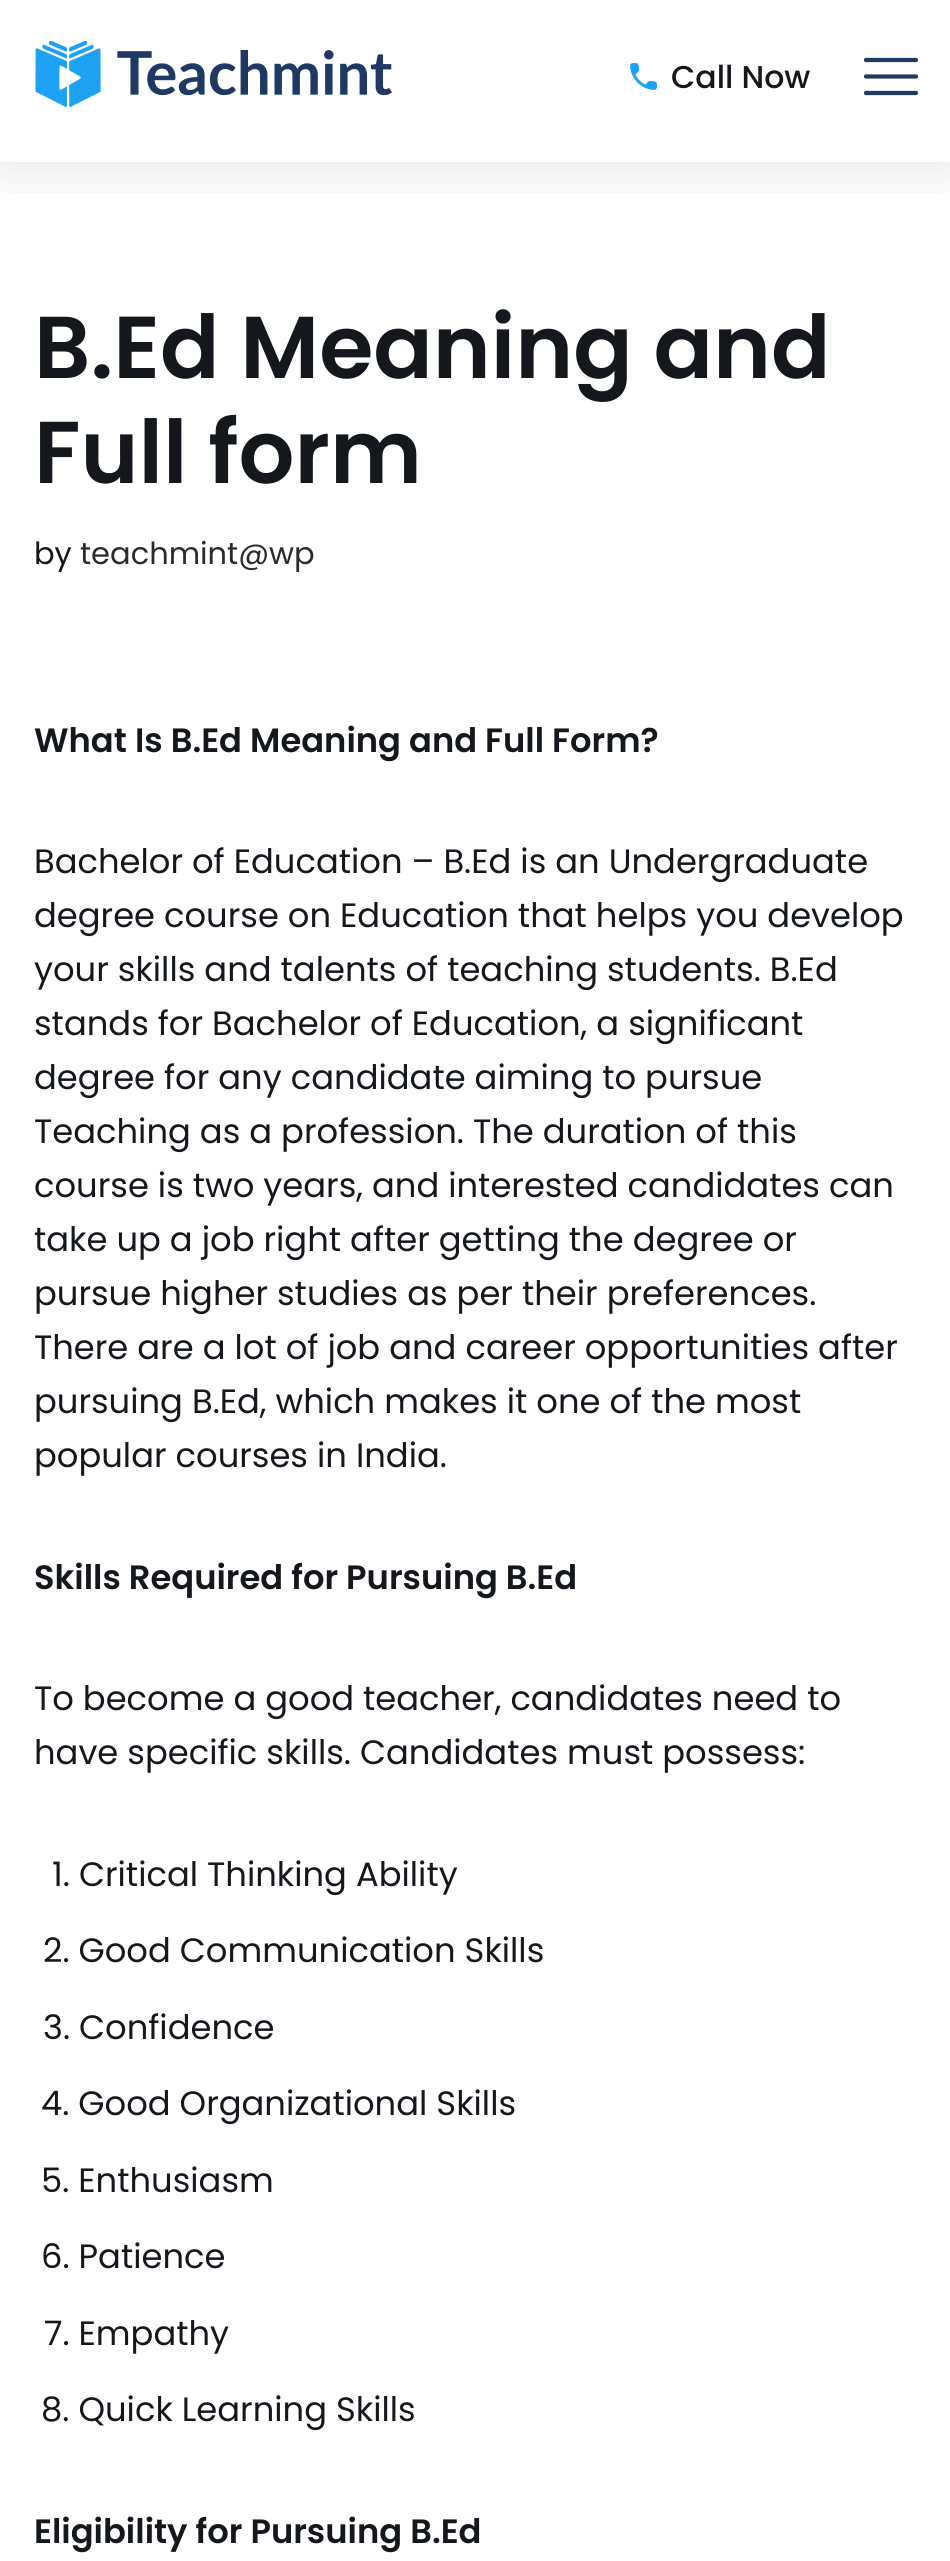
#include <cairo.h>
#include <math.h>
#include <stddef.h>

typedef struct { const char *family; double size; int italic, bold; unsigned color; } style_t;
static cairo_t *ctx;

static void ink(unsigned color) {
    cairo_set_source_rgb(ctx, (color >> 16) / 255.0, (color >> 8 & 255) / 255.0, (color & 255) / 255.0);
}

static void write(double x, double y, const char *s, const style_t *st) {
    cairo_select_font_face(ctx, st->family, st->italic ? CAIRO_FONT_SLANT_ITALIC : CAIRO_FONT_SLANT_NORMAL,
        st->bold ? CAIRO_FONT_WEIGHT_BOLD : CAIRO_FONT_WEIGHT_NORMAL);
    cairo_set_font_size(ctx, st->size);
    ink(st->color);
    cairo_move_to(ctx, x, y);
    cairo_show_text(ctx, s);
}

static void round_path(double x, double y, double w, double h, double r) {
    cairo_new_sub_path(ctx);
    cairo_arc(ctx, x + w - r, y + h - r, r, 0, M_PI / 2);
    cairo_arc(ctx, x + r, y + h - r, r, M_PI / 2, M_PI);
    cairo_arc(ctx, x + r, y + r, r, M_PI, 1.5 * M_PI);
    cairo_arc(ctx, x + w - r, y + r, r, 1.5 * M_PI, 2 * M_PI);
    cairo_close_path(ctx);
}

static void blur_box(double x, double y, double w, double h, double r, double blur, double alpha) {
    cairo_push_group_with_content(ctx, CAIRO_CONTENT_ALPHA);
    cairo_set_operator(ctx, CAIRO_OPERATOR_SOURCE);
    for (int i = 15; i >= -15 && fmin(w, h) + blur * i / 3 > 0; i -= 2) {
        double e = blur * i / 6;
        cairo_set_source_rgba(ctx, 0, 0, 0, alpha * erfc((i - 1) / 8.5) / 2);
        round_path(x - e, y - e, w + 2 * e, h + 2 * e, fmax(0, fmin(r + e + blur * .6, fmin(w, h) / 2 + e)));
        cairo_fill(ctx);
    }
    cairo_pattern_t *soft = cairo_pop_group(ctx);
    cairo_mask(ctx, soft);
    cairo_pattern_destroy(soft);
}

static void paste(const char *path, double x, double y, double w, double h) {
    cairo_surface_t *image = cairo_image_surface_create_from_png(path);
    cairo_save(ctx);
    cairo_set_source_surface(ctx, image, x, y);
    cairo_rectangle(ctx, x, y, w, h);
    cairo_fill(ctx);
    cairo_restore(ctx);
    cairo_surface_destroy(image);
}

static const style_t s1 = {"Poppins Medium", 31.5, 0, 0, 0x14171c};
static const style_t s2 = {"Poppins SemiBold", 87.75, 0, 0, 0x14171c};
static const style_t s3 = {"Poppins", 30.5, 0, 0, 0x14171c};
static const style_t s4 = {"Poppins", 30.5, 0, 0, 0x2b2b2b};
static const style_t s5 = {"Poppins SemiBold", 33.75, 0, 0, 0x14171c};
static const style_t s6 = {"Poppins", 33.75, 0, 0, 0x14171c};

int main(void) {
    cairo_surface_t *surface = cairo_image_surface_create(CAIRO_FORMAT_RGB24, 950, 2561);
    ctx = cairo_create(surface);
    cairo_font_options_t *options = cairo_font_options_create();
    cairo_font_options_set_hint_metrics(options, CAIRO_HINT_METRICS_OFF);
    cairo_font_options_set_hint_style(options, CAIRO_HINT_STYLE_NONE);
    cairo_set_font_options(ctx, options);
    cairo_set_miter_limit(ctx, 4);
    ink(0xffffff);
    cairo_paint(ctx);
    cairo_save(ctx);
    cairo_rectangle(ctx, 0, 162, 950, 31);
    cairo_clip(ctx);
    ink(0x000000);
    blur_box(0, 7, 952, 162, 0, 29, 0.1);
    cairo_restore(ctx);
    paste("pic1.png", 35, 41, 357, 66);
    paste("pic2.png", 630, 63, 27, 27);
    write(671, 88, "Call Now", &s1);
    cairo_new_path(ctx);
    cairo_move_to(ctx, 866, 76.5);
    cairo_line_to(ctx, 916, 76.5);
    cairo_move_to(ctx, 866, 60);
    cairo_line_to(ctx, 916, 60);
    cairo_move_to(ctx, 866, 93);
    cairo_line_to(ctx, 916, 93);
    ink(0x1f3965);
    cairo_set_line_width(ctx, 4.2);
    cairo_set_line_cap(ctx, CAIRO_LINE_CAP_ROUND);
    cairo_set_line_join(ctx, CAIRO_LINE_JOIN_ROUND);
    cairo_stroke(ctx);
    write(34, 378, "B.Ed Meaning and", &s2);
    write(34, 483, "Full form", &s2);
    write(34, 564, "by", &s3);
    write(80, 564, "teachmint@wp", &s4);
    write(34, 752, "What Is B.Ed Meaning and Full Form?", &s5);
    write(34, 873, "Bachelor of Education – B.Ed is an Undergraduate", &s6);
    write(34, 927, "degree course on Education that helps you develop", &s6);
    write(34, 981, "your skills and talents of teaching students. B.Ed", &s6);
    write(34, 1035, "stands for Bachelor of Education, a significant", &s6);
    write(34, 1089, "degree for any candidate aiming to pursue", &s6);
    write(34, 1143, "Teaching as a profession. The duration of this", &s6);
    write(34, 1197, "course is two years, and interested candidates can", &s6);
    write(34, 1251, "take up a job right after getting the degree or", &s6);
    write(34, 1305, "pursue higher studies as per their preferences.", &s6);
    write(34, 1359, "There are a lot of job and career opportunities after", &s6);
    write(34, 1413, "pursuing B.Ed, which makes it one of the most", &s6);
    write(34, 1467, "popular courses in India.", &s6);
    write(34, 1589, "Skills Required for Pursuing B.Ed", &s5);
    write(34, 1710, "To become a good teacher, candidates need to", &s6);
    write(34, 1764, "have specific skills. Candidates must possess:", &s6);
    write(52, 1886, "1. Critical Thinking Ability", &s6);
    write(43, 1962, "2. Good Communication Skills", &s6);
    write(43, 2039, "3. Confidence", &s6);
    write(41, 2115, "4. Good Organizational Skills", &s6);
    write(41, 2192, "5. Enthusiasm", &s6);
    write(41, 2268, "6. Patience", &s6);
    write(44, 2345, "7. Empathy", &s6);
    write(41, 2421, "8. Quick Learning Skills", &s6);
    write(34, 2543, "Eligibility for Pursuing B.Ed", &s5);
    cairo_surface_write_to_png(surface, "screenshot.png");
    cairo_font_options_destroy(options);
    cairo_destroy(ctx);
    cairo_surface_destroy(surface);
    return 0;
}
